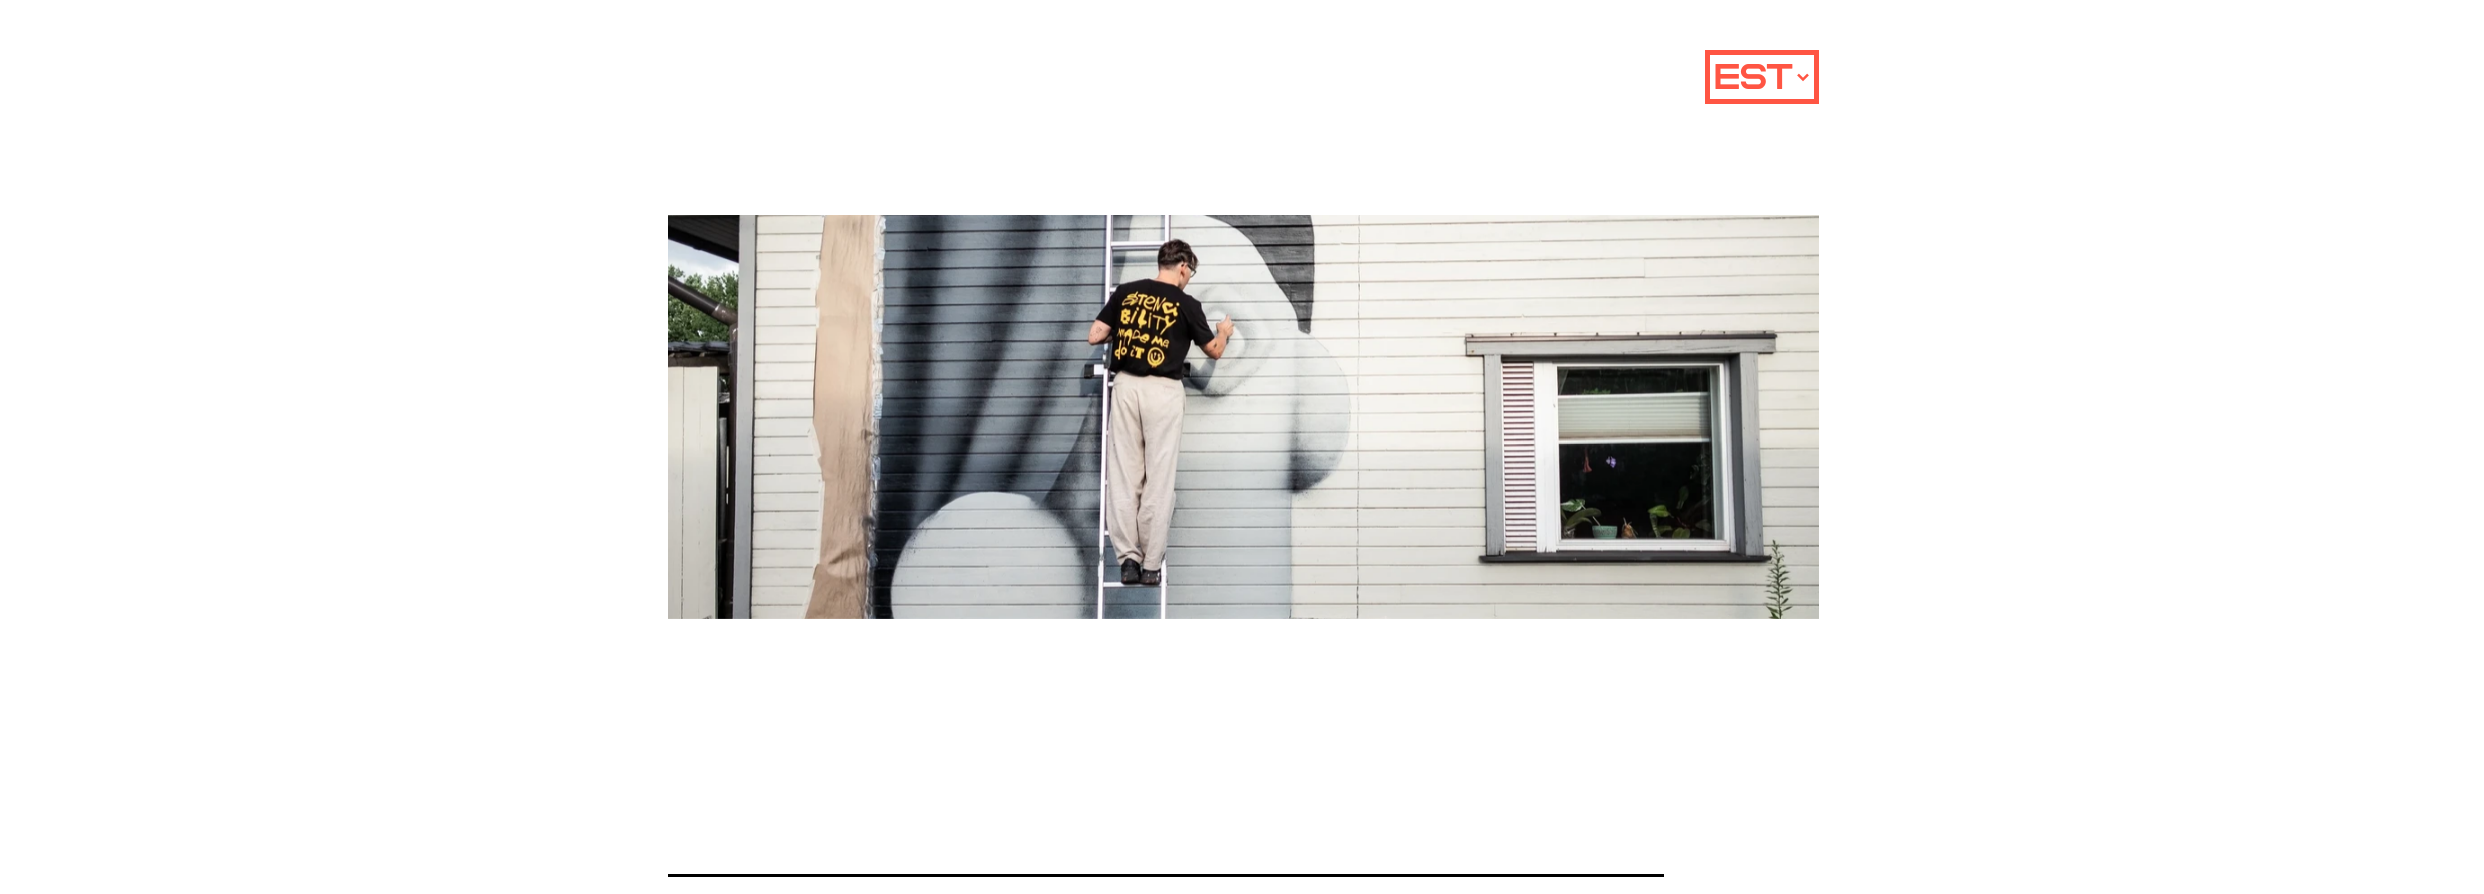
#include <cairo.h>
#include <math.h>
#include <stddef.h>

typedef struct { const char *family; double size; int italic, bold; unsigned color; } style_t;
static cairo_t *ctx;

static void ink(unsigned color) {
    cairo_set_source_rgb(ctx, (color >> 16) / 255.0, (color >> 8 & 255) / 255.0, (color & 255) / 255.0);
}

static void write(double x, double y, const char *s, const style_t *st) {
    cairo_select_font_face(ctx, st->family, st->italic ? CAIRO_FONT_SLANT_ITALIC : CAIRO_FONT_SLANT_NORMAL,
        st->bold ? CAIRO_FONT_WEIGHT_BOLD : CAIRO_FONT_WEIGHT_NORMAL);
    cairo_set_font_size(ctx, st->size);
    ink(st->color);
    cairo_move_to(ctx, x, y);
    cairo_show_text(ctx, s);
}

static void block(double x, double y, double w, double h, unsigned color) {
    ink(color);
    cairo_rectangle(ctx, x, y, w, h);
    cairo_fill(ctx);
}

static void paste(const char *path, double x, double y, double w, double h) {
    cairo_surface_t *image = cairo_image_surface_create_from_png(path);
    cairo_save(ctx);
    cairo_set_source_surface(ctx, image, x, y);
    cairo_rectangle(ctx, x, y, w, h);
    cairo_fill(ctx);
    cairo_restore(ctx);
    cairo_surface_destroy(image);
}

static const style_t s1 = {"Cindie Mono", 25, 0, 0, 0xff5543};

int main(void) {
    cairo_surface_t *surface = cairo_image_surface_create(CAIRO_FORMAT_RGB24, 2484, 894);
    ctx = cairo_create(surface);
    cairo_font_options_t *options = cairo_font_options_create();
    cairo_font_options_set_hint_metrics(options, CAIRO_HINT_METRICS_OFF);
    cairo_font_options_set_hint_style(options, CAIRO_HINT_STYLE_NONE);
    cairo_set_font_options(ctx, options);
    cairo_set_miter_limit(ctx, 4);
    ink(0xffffff);
    cairo_paint(ctx);
    cairo_rectangle(ctx, 1707.5, 52.5, 109, 49);
    ink(0xff5543);
    cairo_set_line_width(ctx, 5);
    cairo_stroke(ctx);
    cairo_new_path(ctx);
    cairo_move_to(ctx, 1798, 74.5);
    cairo_line_to(ctx, 1803, 79.5);
    cairo_line_to(ctx, 1808, 74.5);
    cairo_set_line_width(ctx, 2.5);
    cairo_stroke(ctx);
    write(1714, 89, "EST", &s1);
    paste("pic1.png", 668, 215, 1151, 404);
    block(668, 874, 996, 3, 0x000000);
    cairo_surface_write_to_png(surface, "screenshot.png");
    cairo_font_options_destroy(options);
    cairo_destroy(ctx);
    cairo_surface_destroy(surface);
    return 0;
}
